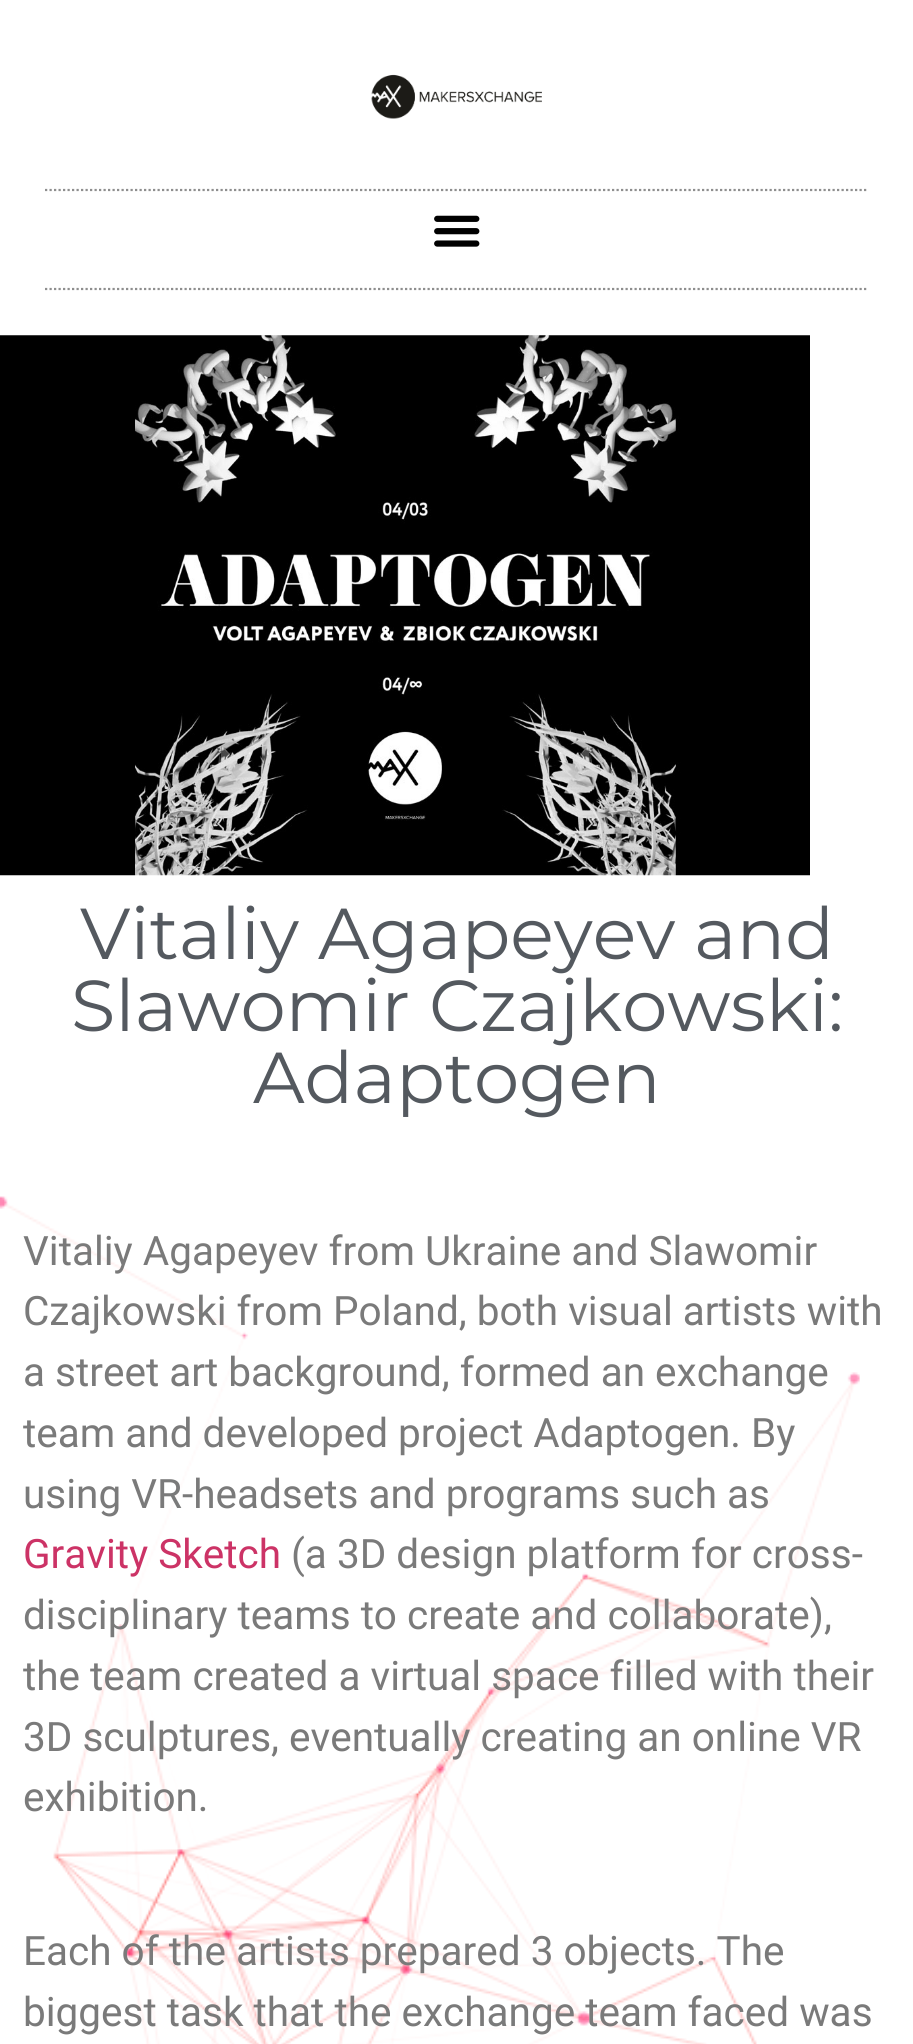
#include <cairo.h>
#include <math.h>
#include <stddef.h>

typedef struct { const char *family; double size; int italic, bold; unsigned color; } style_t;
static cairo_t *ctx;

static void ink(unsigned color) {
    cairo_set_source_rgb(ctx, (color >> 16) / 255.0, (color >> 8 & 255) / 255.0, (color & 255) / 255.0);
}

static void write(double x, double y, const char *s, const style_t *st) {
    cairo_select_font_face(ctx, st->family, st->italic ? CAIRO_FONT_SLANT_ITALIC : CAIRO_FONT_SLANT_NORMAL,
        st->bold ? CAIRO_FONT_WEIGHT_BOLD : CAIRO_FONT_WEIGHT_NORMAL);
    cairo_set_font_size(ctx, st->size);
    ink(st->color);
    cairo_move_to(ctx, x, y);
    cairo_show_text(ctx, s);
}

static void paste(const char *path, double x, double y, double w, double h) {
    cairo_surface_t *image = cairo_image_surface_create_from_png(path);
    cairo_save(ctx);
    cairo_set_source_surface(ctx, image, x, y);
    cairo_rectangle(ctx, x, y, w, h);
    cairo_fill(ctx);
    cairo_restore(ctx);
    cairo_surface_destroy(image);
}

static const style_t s1 = {"Montserrat", 72, 0, 0, 0x54595f};
static const style_t s2 = {"Roboto", 40.5, 0, 0, 0x7a7a7a};
static const style_t s3 = {"Roboto", 40.5, 0, 0, 0xcc3366};

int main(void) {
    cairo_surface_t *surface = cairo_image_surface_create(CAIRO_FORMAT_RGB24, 913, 2044);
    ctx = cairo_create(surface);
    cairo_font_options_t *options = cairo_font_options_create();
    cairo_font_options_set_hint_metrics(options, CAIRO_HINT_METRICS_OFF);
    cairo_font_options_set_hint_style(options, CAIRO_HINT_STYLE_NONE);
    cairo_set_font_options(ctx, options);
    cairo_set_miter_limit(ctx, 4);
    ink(0xffffff);
    cairo_paint(ctx);
    paste("pic1.png", 371, 74, 171, 45);
    cairo_new_path(ctx);
    cairo_move_to(ctx, 45, 190);
    cairo_line_to(ctx, 868.5, 190);
    ink(0x8e8e8e);
    cairo_set_line_width(ctx, 2.2);
    cairo_set_dash(ctx, (double[]){2.25, 2.25}, 2, 0);
    cairo_stroke(ctx);
    cairo_new_path(ctx);
    cairo_move_to(ctx, 45, 289);
    cairo_line_to(ctx, 868.5, 289);
    cairo_stroke(ctx);
    paste("pic2.png", 434, 215, 46, 32);
    paste("pic3.png", 0, 335, 810, 541);
    write(80, 959, "Vitaliy Agapeyev and", &s1);
    write(71, 1031, "Slawomir Czajkowski:", &s1);
    write(253, 1103, "Adaptogen", &s1);
    paste("pic4.png", 0, 1196, 860, 848);
    write(23, 1265, "Vitaliy Agapeyev from Ukraine and Slawomir", &s2);
    write(23, 1325, "Czajkowski from Poland, both visual artists with", &s2);
    write(23, 1386, "a street art background, formed an exchange", &s2);
    write(23, 1447, "team and developed project Adaptogen. By", &s2);
    write(23, 1508, "using VR-headsets and programs such as", &s2);
    write(23, 1568, "Gravity Sketch", &s3);
    write(291, 1568, "(a 3D design platform for cross-", &s2);
    write(23, 1629, "disciplinary teams to create and collaborate),", &s2);
    write(23, 1690, "the team created a virtual space filled with their", &s2);
    write(23, 1751, "3D sculptures, eventually creating an online VR", &s2);
    write(23, 1811, "exhibition.", &s2);
    write(23, 1965, "Each of the artists prepared 3 objects. The", &s2);
    write(23, 2026, "biggest task that the exchange team faced was", &s2);
    cairo_surface_write_to_png(surface, "screenshot.png");
    cairo_font_options_destroy(options);
    cairo_destroy(ctx);
    cairo_surface_destroy(surface);
    return 0;
}
